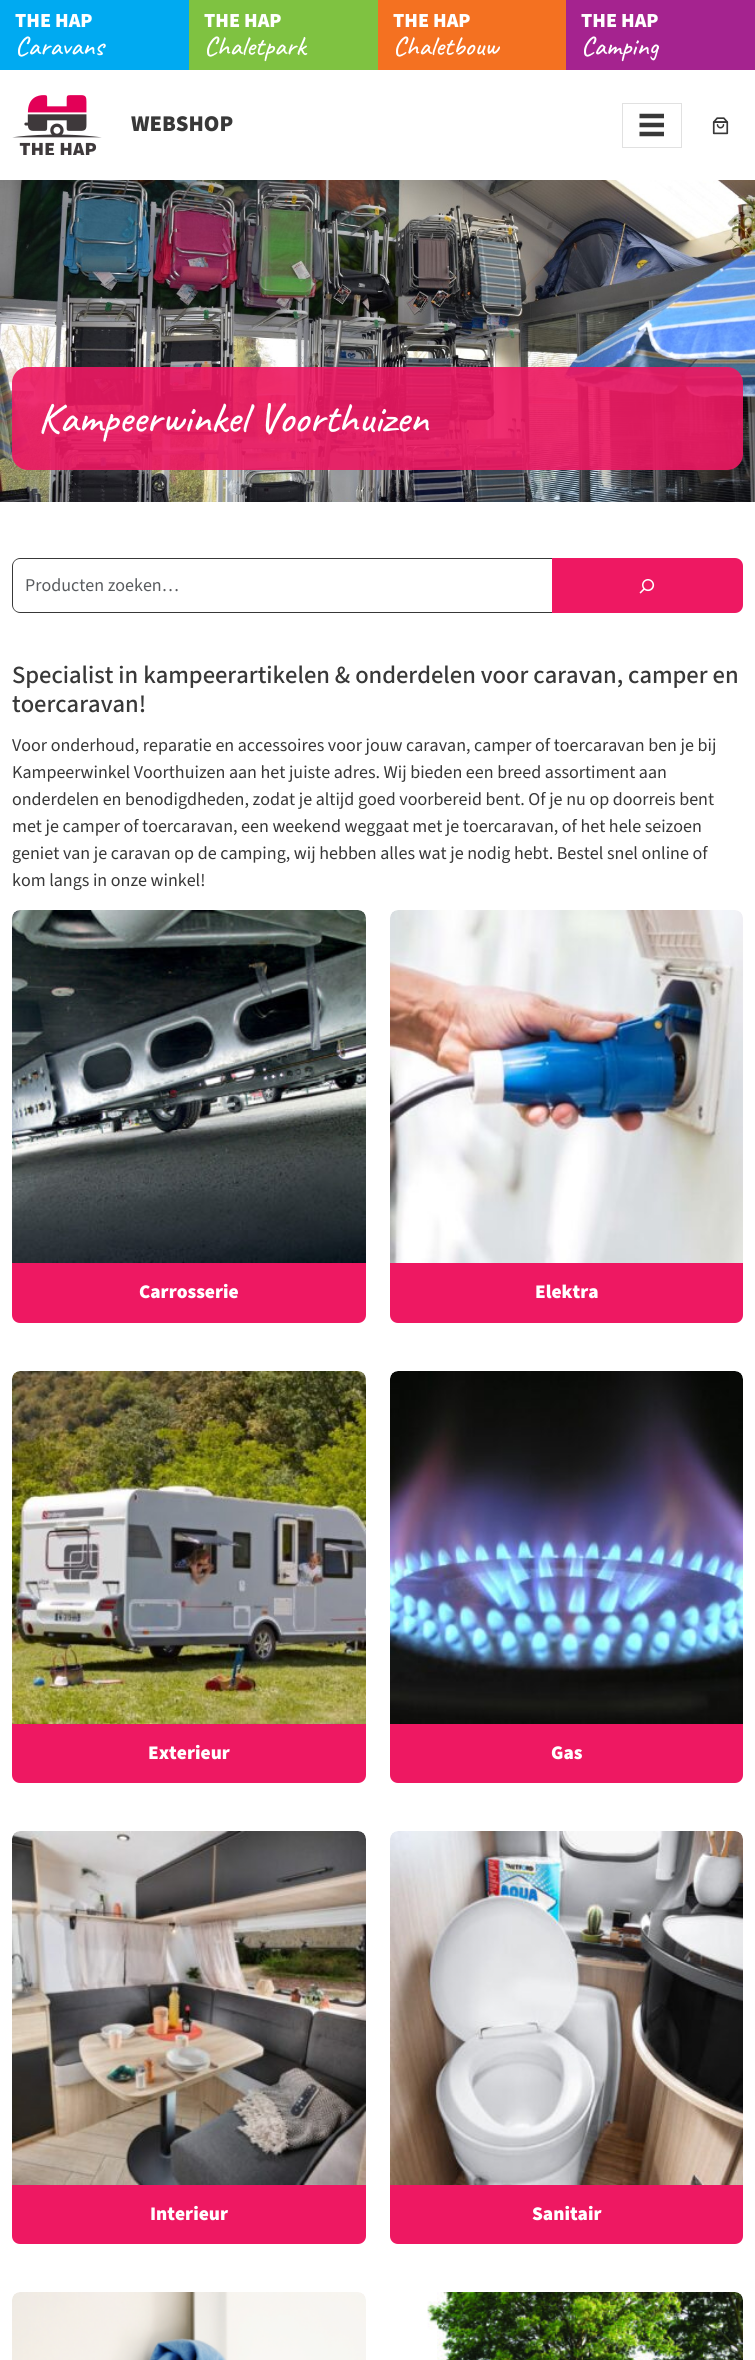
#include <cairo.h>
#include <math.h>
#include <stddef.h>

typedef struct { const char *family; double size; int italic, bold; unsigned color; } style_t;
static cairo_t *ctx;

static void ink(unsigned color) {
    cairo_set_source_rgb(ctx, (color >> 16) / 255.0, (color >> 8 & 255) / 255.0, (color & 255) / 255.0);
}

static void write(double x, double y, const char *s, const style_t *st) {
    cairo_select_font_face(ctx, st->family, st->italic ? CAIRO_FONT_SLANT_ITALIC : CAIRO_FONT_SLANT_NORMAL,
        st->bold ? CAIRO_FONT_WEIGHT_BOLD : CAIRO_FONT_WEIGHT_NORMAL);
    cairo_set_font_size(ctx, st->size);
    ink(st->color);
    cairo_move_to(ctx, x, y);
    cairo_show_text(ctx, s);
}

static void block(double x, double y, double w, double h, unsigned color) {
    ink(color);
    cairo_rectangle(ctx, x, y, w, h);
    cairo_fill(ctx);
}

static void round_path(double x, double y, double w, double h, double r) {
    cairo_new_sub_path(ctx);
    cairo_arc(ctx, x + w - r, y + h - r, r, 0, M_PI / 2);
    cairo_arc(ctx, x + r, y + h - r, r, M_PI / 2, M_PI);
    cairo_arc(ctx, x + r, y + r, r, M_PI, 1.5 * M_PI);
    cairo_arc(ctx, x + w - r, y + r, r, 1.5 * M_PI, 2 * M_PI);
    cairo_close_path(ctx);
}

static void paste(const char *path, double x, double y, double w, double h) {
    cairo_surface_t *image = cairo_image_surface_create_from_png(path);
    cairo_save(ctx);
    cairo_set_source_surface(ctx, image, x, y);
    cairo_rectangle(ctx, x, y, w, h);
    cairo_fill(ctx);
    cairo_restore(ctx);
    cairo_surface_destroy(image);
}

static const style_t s1 = {"Source Sans 3 Black", 20, 0, 0, 0xffffff};
static const style_t s2 = {"Caveat Medium", 27, 0, 0, 0xffffff};
static const style_t s3 = {"Source Sans 3 Black", 22.5, 0, 0, 0x383838};
static const style_t s4 = {"Caveat Medium", 42.5, 0, 0, 0xffffff};
static const style_t s5 = {"Source Sans 3", 18, 0, 0, 0x595c5f};
static const style_t s6 = {"Source Sans 3 Medium", 24.65, 0, 0, 0x383838};
static const style_t s7 = {"Source Sans 3", 18, 0, 0, 0x383838};
static const style_t s8 = {"Source Sans 3 Black", 19.25, 0, 0, 0xffffff};

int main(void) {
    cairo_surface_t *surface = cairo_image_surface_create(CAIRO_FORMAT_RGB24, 755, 2360);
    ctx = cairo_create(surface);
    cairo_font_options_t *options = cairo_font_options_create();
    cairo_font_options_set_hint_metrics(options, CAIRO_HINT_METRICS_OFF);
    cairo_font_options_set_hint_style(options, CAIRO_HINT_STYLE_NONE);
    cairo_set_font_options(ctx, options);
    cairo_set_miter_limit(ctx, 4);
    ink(0xffffff);
    cairo_paint(ctx);
    block(0, 0, 189, 70, 0x00aaf1);
    write(15, 27, "THE HAP", &s1);
    write(15, 55, "Caravans", &s2);
    block(189, 0, 189, 70, 0x7fc241);
    write(204, 27, "THE HAP", &s1);
    write(204, 55, "Chaletpark", &s2);
    block(378, 0, 188, 70, 0xf47121);
    write(393, 27, "THE HAP", &s1);
    write(393, 55, "Chaletbouw", &s2);
    block(566, 0, 189, 70, 0xa5238f);
    write(581, 27, "THE HAP", &s1);
    write(581, 55, "Camping", &s2);
    paste("pic1.png", 12, 95, 90, 60);
    write(131, 131, "WEBSHOP", &s3);
    cairo_rectangle(ctx, 622.5, 103.5, 59, 44);
    ink(0xe1e1e1);
    cairo_set_line_width(ctx, 1);
    cairo_stroke(ctx);
    cairo_new_path(ctx);
    cairo_move_to(ctx, 639.5, 116);
    cairo_line_to(ctx, 664, 116);
    cairo_move_to(ctx, 639.5, 125);
    cairo_line_to(ctx, 664, 125);
    cairo_move_to(ctx, 639.5, 134);
    cairo_line_to(ctx, 664, 134);
    ink(0x383838);
    cairo_set_line_width(ctx, 4.5);
    cairo_stroke(ctx);
    paste("pic2.png", 712, 117, 17, 18);
    paste("pic3.png", 0, 180, 755, 322);
    cairo_set_source_rgba(ctx, 0.933, 0.094, 0.384, 0.9);
    round_path(12, 367, 731, 103, 16);
    cairo_fill(ctx);
    write(38, 432, "Kampeerwinkel Voorthuizen", &s4);
    ink(0x383838);
    cairo_set_fill_rule(ctx, CAIRO_FILL_RULE_EVEN_ODD);
    cairo_new_path(ctx);
    cairo_move_to(ctx, 20, 558);
    cairo_line_to(ctx, 552, 558);
    cairo_line_to(ctx, 552, 613);
    cairo_line_to(ctx, 20, 613);
    cairo_curve_to(ctx, 16, 613, 12, 609, 12, 605);
    cairo_line_to(ctx, 12, 566);
    cairo_curve_to(ctx, 12, 562, 16, 558, 20, 558);
    cairo_close_path(ctx);
    cairo_move_to(ctx, 20, 559);
    cairo_line_to(ctx, 552, 559);
    cairo_line_to(ctx, 552, 612);
    cairo_line_to(ctx, 20, 612);
    cairo_curve_to(ctx, 16, 612, 13, 609, 13, 605);
    cairo_line_to(ctx, 13, 566);
    cairo_curve_to(ctx, 13, 562, 16, 559, 20, 559);
    cairo_close_path(ctx);
    cairo_fill(ctx);
    write(25, 591, "Producten zoeken…", &s5);
    ink(0xee1862);
    cairo_new_path(ctx);
    cairo_move_to(ctx, 552, 558);
    cairo_line_to(ctx, 735, 558);
    cairo_curve_to(ctx, 739.5, 558, 743, 561.5, 743, 566);
    cairo_line_to(ctx, 743, 605);
    cairo_curve_to(ctx, 743, 609.5, 739.5, 613, 735, 613);
    cairo_line_to(ctx, 552, 613);
    cairo_close_path(ctx);
    cairo_fill(ctx);
    paste("pic4.png", 639, 579, 16, 15);
    write(12, 683, "Specialist in kampeerartikelen & onderdelen voor caravan, camper en", &s6);
    write(12, 712, "toercaravan!", &s6);
    write(12, 751, "Voor onderhoud, reparatie en accessoires voor jouw caravan, camper of toercaravan ben je bij", &s7);
    write(12, 778, "Kampeerwinkel Voorthuizen aan het juiste adres. Wij bieden een breed assortiment aan", &s7);
    write(12, 805, "onderdelen en benodigdheden, zodat je altijd goed voorbereid bent. Of je nu op doorreis bent", &s7);
    write(12, 832, "met je camper of toercaravan, een weekend weggaat met je toercaravan, of het hele seizoen", &s7);
    write(12, 859, "geniet van je caravan op de camping, wij hebben alles wat je nodig hebt. Bestel snel online of", &s7);
    write(12, 886, "kom langs in onze winkel!", &s7);
    paste("pic5.png", 12, 910, 354, 353);
    ink(0xee1862);
    cairo_new_path(ctx);
    cairo_move_to(ctx, 12, 1263);
    cairo_line_to(ctx, 366, 1263);
    cairo_line_to(ctx, 366, 1315);
    cairo_curve_to(ctx, 366, 1319.5, 362.5, 1323, 358, 1323);
    cairo_line_to(ctx, 20, 1323);
    cairo_curve_to(ctx, 15.5, 1323, 12, 1319.5, 12, 1315);
    cairo_close_path(ctx);
    cairo_fill(ctx);
    write(139, 1298, "Carrosserie", &s8);
    paste("pic6.png", 390, 910, 353, 353);
    ink(0xee1862);
    cairo_new_path(ctx);
    cairo_move_to(ctx, 390, 1263);
    cairo_line_to(ctx, 743, 1263);
    cairo_line_to(ctx, 743, 1315);
    cairo_curve_to(ctx, 743, 1319.5, 739.5, 1323, 735, 1323);
    cairo_line_to(ctx, 398, 1323);
    cairo_curve_to(ctx, 393.5, 1323, 390, 1319.5, 390, 1315);
    cairo_close_path(ctx);
    cairo_fill(ctx);
    write(535, 1298, "Elektra", &s8);
    paste("pic7.png", 12, 1371, 354, 353);
    ink(0xee1862);
    cairo_new_path(ctx);
    cairo_move_to(ctx, 12, 1724);
    cairo_line_to(ctx, 366, 1724);
    cairo_line_to(ctx, 366, 1775);
    cairo_curve_to(ctx, 366, 1779.5, 362.5, 1783, 358, 1783);
    cairo_line_to(ctx, 20, 1783);
    cairo_curve_to(ctx, 15.5, 1783, 12, 1779.5, 12, 1775);
    cairo_close_path(ctx);
    cairo_fill(ctx);
    write(148, 1759, "Exterieur", &s8);
    paste("pic8.png", 390, 1371, 353, 353);
    ink(0xee1862);
    cairo_new_path(ctx);
    cairo_move_to(ctx, 390, 1724);
    cairo_line_to(ctx, 743, 1724);
    cairo_line_to(ctx, 743, 1775);
    cairo_curve_to(ctx, 743, 1779.5, 739.5, 1783, 735, 1783);
    cairo_line_to(ctx, 398, 1783);
    cairo_curve_to(ctx, 393.5, 1783, 390, 1779.5, 390, 1775);
    cairo_close_path(ctx);
    cairo_fill(ctx);
    write(551, 1759, "Gas", &s8);
    paste("pic9.png", 12, 1831, 354, 354);
    ink(0xee1862);
    cairo_new_path(ctx);
    cairo_move_to(ctx, 12, 2185);
    cairo_line_to(ctx, 366, 2185);
    cairo_line_to(ctx, 366, 2236);
    cairo_curve_to(ctx, 366, 2240.5, 362.5, 2244, 358, 2244);
    cairo_line_to(ctx, 20, 2244);
    cairo_curve_to(ctx, 15.5, 2244, 12, 2240.5, 12, 2236);
    cairo_close_path(ctx);
    cairo_fill(ctx);
    write(150, 2220, "Interieur", &s8);
    paste("pic10.png", 390, 1831, 353, 354);
    ink(0xee1862);
    cairo_new_path(ctx);
    cairo_move_to(ctx, 390, 2185);
    cairo_line_to(ctx, 743, 2185);
    cairo_line_to(ctx, 743, 2236);
    cairo_curve_to(ctx, 743, 2240.5, 739.5, 2244, 735, 2244);
    cairo_line_to(ctx, 398, 2244);
    cairo_curve_to(ctx, 393.5, 2244, 390, 2240.5, 390, 2236);
    cairo_close_path(ctx);
    cairo_fill(ctx);
    write(532, 2220, "Sanitair", &s8);
    paste("pic11.png", 12, 2292, 354, 68);
    paste("pic12.png", 427, 2292, 316, 68);
    cairo_surface_write_to_png(surface, "screenshot.png");
    cairo_font_options_destroy(options);
    cairo_destroy(ctx);
    cairo_surface_destroy(surface);
    return 0;
}
